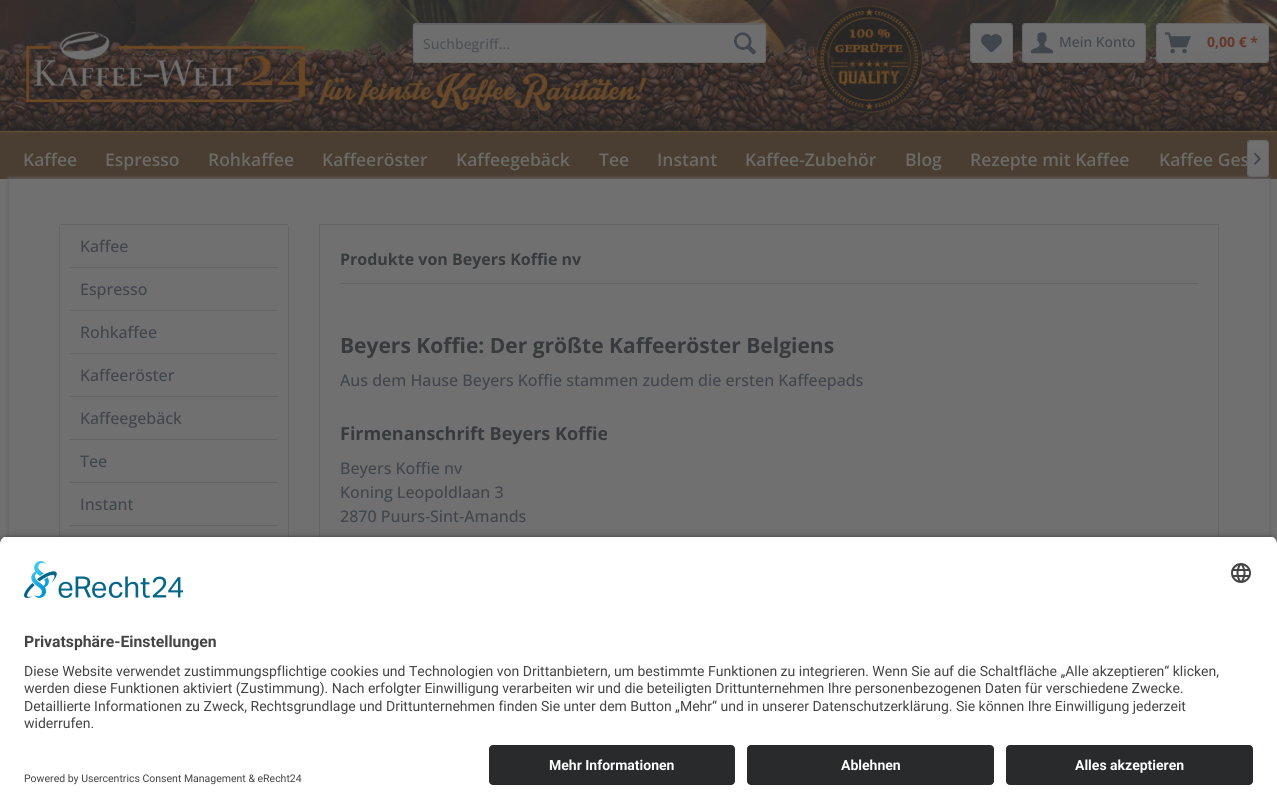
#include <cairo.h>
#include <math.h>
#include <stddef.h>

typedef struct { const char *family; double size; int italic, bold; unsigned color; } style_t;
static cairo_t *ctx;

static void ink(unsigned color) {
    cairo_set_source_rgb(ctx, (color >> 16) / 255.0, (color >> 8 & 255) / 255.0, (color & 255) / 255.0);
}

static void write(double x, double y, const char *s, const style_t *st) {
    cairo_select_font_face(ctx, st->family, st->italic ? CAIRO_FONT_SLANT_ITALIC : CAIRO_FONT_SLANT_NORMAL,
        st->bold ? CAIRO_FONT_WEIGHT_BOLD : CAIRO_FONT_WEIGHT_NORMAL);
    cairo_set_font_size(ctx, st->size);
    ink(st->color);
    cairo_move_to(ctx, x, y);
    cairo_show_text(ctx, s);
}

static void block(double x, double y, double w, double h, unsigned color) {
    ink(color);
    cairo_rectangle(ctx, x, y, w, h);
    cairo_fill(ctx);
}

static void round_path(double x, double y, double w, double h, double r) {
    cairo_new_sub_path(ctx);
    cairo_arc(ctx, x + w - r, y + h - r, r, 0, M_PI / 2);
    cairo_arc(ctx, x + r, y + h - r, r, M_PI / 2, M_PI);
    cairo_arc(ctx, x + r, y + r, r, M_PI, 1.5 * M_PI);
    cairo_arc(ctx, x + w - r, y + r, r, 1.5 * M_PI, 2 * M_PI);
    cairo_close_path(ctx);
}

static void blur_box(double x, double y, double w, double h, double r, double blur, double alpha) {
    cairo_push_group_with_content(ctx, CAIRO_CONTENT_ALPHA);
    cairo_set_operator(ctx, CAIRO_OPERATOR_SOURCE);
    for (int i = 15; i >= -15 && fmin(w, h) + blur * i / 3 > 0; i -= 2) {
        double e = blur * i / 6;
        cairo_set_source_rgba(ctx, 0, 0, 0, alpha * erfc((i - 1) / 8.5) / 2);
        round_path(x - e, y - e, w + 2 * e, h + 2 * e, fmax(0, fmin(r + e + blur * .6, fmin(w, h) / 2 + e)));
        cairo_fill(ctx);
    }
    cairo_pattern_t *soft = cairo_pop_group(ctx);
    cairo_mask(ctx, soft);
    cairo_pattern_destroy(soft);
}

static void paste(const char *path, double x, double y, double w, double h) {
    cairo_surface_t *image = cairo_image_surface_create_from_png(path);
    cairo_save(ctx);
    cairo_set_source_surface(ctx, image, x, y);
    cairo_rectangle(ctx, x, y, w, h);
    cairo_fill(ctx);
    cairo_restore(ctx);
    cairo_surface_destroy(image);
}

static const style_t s1 = {"Open Sans Medium", 14, 0, 0, 0x4c5156};
static const style_t s2 = {"Open Sans Medium", 14, 0, 0, 0x40464c};
static const style_t s3 = {"Open Sans", 14, 0, 1, 0x653727};
static const style_t s4 = {"Open Sans SemiBold", 17.5, 0, 0, 0x6b6a66};
static const style_t s5 = {"Open Sans Medium", 16, 0, 0, 0x40464c};
static const style_t s6 = {"Open Sans", 16, 0, 1, 0x373b3e};
static const style_t s7 = {"Open Sans", 21, 0, 1, 0x373b3e};
static const style_t s8 = {"Open Sans", 18, 0, 1, 0x373b3e};
static const style_t s9 = {"Roboto", 15.75, 0, 1, 0x444444};
static const style_t s10 = {"Roboto", 14, 0, 0, 0x444444};
static const style_t s11 = {"Roboto", 14, 0, 1, 0xffffff};
static const style_t s12 = {"Roboto", 10.5, 0, 0, 0x444444};

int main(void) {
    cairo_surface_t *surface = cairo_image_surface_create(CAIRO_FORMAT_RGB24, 1277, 809);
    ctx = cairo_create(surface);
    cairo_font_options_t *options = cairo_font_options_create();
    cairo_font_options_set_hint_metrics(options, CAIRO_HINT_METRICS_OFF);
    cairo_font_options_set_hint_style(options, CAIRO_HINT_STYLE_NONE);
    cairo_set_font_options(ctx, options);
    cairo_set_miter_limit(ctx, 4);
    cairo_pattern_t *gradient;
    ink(0x707070);
    cairo_paint(ctx);
    paste("pic1.png", 0, 0, 1277, 179);
    paste("pic2.png", 24, 31, 290, 75);
    ink(0x6e6e6f);
    round_path(413, 23, 353, 40, 3);
    cairo_fill(ctx);
    ink(0x656568);
    cairo_new_path(ctx);
    cairo_move_to(ctx, 416, 25);
    cairo_line_to(ctx, 763, 25);
    cairo_curve_to(ctx, 764, 25, 765, 26, 765, 27);
    cairo_curve_to(ctx, 765, 26, 765, 24, 763, 24);
    cairo_line_to(ctx, 416, 24);
    cairo_curve_to(ctx, 414, 24, 414, 26, 414, 27);
    cairo_curve_to(ctx, 414, 26, 415, 25, 416, 25);
    cairo_close_path(ctx);
    cairo_fill(ctx);
    cairo_new_path(ctx);
    cairo_move_to(ctx, 414, 24);
    cairo_line_to(ctx, 416, 23.5);
    cairo_line_to(ctx, 763, 23.5);
    cairo_line_to(ctx, 765, 24);
    ink(0x616165);
    cairo_set_line_width(ctx, 1);
    cairo_stroke(ctx);
    cairo_new_path(ctx);
    cairo_move_to(ctx, 765, 24);
    cairo_curve_to(ctx, 766.5, 26, 765.5, 45, 765.5, 48.5);
    cairo_line_to(ctx, 765.5, 54.5);
    cairo_curve_to(ctx, 765.5, 56, 767, 62.5, 763, 62.5);
    cairo_line_to(ctx, 416, 62.5);
    cairo_curve_to(ctx, 412, 62.5, 413.5, 56, 413.5, 54.5);
    cairo_line_to(ctx, 413.5, 48.5);
    cairo_curve_to(ctx, 413.5, 45, 412.5, 26, 414, 24);
    ink(0x656568);
    cairo_stroke(ctx);
    write(423, 49, "Suchbegriff...", &s1);
    paste("pic3.png", 734, 32, 22, 23);
    gradient = cairo_pattern_create_linear(992, 24, 992, 62);
    cairo_pattern_add_color_stop_rgba(gradient, 0, 0.439, 0.439, 0.439, 1);
    cairo_pattern_add_color_stop_rgba(gradient, 1, 0.431, 0.431, 0.435, 1);
    cairo_set_source(ctx, gradient);
    cairo_pattern_destroy(gradient);
    round_path(971, 24, 41, 38, 2);
    cairo_fill(ctx);
    round_path(970.5, 23.5, 42, 39, 2.5);
    ink(0x656568);
    cairo_stroke(ctx);
    paste("pic4.png", 981, 34, 21, 19);
    gradient = cairo_pattern_create_linear(1084, 24, 1084, 62);
    cairo_pattern_add_color_stop_rgba(gradient, 0, 0.439, 0.439, 0.439, 1);
    cairo_pattern_add_color_stop_rgba(gradient, 1, 0.431, 0.431, 0.435, 1);
    cairo_set_source(ctx, gradient);
    cairo_pattern_destroy(gradient);
    round_path(1023, 24, 122, 38, 2);
    cairo_fill(ctx);
    round_path(1022.5, 23.5, 123, 39, 2.5);
    ink(0x656568);
    cairo_stroke(ctx);
    paste("pic5.png", 1031, 32, 22, 22);
    write(1059, 47, "Mein Konto", &s2);
    gradient = cairo_pattern_create_linear(1213, 24, 1213, 62);
    cairo_pattern_add_color_stop_rgba(gradient, 0, 0.439, 0.439, 0.439, 1);
    cairo_pattern_add_color_stop_rgba(gradient, 1, 0.431, 0.431, 0.435, 1);
    cairo_set_source(ctx, gradient);
    cairo_pattern_destroy(gradient);
    round_path(1157, 24, 111, 38, 2);
    cairo_fill(ctx);
    round_path(1156.5, 23.5, 112, 39, 2.5);
    ink(0x656568);
    cairo_stroke(ctx);
    paste("pic6.png", 1165, 32, 26, 22);
    write(1207, 47, "0,00 € *", &s3);
    write(23, 166, "Kaffee", &s4);
    write(105, 166, "Espresso", &s4);
    write(208, 166, "Rohkaffee", &s4);
    write(322, 166, "Kaffeeröster", &s4);
    write(456, 166, "Kaffeegebäck", &s4);
    write(599, 166, "Tee", &s4);
    write(657, 166, "Instant", &s4);
    write(745, 166, "Kaffee-Zubehör", &s4);
    write(905, 166, "Blog", &s4);
    write(970, 166, "Rezepte mit Kaffee", &s4);
    write(1159, 166, "Kaffee Ges", &s4);
    cairo_save(ctx);
    cairo_set_fill_rule(ctx, CAIRO_FILL_RULE_EVEN_ODD);
    cairo_new_path(ctx);
    cairo_move_to(ctx, 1, 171);
    cairo_line_to(ctx, 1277, 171);
    cairo_line_to(ctx, 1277, 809);
    cairo_line_to(ctx, 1, 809);
    cairo_close_path(ctx);
    cairo_move_to(ctx, 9, 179);
    cairo_line_to(ctx, 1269, 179);
    cairo_line_to(ctx, 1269, 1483);
    cairo_line_to(ctx, 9, 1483);
    cairo_close_path(ctx);
    cairo_clip(ctx);
    ink(0x656568);
    blur_box(8, 178, 1262, 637, 0, 2, 1);
    cairo_restore(ctx);
    gradient = cairo_pattern_create_linear(1258, 141, 1258, 176);
    cairo_pattern_add_color_stop_rgba(gradient, 0, 0.439, 0.439, 0.439, 1);
    cairo_pattern_add_color_stop_rgba(gradient, 1, 0.431, 0.431, 0.435, 1);
    cairo_set_source(ctx, gradient);
    cairo_pattern_destroy(gradient);
    round_path(1248, 141, 20, 35, 2);
    cairo_fill(ctx);
    round_path(1247.5, 140.5, 21, 36, 2.5);
    ink(0x656568);
    cairo_stroke(ctx);
    paste("pic7.png", 1254, 152, 7, 13);
    round_path(59.5, 224.5, 229, 473, 2.5);
    cairo_stroke(ctx);
    block(70, 267, 208, 1, 0x656568);
    write(80, 252, "Kaffee", &s5);
    block(70, 310, 208, 1, 0x656568);
    write(80, 295, "Espresso", &s5);
    block(70, 353, 208, 1, 0x656568);
    write(80, 338, "Rohkaffee", &s5);
    block(70, 396, 208, 1, 0x656568);
    write(80, 381, "Kaffeeröster", &s5);
    block(70, 439, 208, 1, 0x656568);
    write(80, 424, "Kaffeegebäck", &s5);
    block(70, 482, 208, 1, 0x656568);
    write(80, 467, "Tee", &s5);
    block(70, 525, 208, 1, 0x656568);
    write(80, 510, "Instant", &s5);
    cairo_rectangle(ctx, 319.5, 224.5, 899, 412);
    ink(0x656568);
    cairo_stroke(ctx);
    block(340, 283, 858, 1, 0x656568);
    write(340, 265, "Produkte von Beyers Koffie nv", &s6);
    write(340, 353, "Beyers Koffie: Der größte Kaffeeröster Belgiens", &s7);
    write(340, 386, "Aus dem Hause Beyers Koffie stammen zudem die ersten Kaffeepads", &s5);
    write(340, 440, "Firmenanschrift Beyers Koffie", &s8);
    write(340, 474, "Beyers Koffie nv", &s5);
    write(340, 498, "Koning Leopoldlaan 3", &s5);
    write(340, 522, "2870 Puurs-Sint-Amands", &s5);
    ink(0x000000);
    blur_box(0, 539, 1277, 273, 8, 3.5, 0.8);
    cairo_save(ctx);
    cairo_new_path(ctx);
    cairo_move_to(ctx, 8, 536);
    cairo_line_to(ctx, 1269, 536);
    cairo_curve_to(ctx, 1273.5, 536, 1277, 539.5, 1277, 544);
    cairo_line_to(ctx, 1277, 737);
    cairo_line_to(ctx, 0, 737);
    cairo_line_to(ctx, 0, 544);
    cairo_curve_to(ctx, 0, 539.5, 3.5, 536, 8, 536);
    cairo_close_path(ctx);
    cairo_clip(ctx);
    block(0, 537, 1277, 200, 0xffffff);
    cairo_restore(ctx);
    paste("pic8.png", 24, 561, 160, 37);
    paste("pic9.png", 1231, 563, 20, 20);
    write(24, 647, "Privatsphäre-Einstellungen", &s9);
    write(24, 676, "Diese Website verwendet zustimmungspflichtige cookies und Technologien von Drittanbietern, um bestimmte Funktionen zu integrieren. Wenn Sie auf die Schaltfläche „Alle akzeptieren“ klicken,", &s10);
    write(24, 693, "werden diese Funktionen aktiviert (Zustimmung). Nach erfolgter Einwilligung verarbeiten wir und die beteiligten Drittunternehmen Ihre personenbezogenen Daten für verschiedene Zwecke.", &s10);
    write(24, 711, "Detaillierte Informationen zu Zweck, Rechtsgrundlage und Drittunternehmen finden Sie unter dem Button „Mehr“ und in unserer Datenschutzerklärung. Sie können Ihre Einwilligung jederzeit", &s10);
    write(24, 728, "widerrufen.", &s10);
    block(0, 737, 1277, 72, 0xffffff);
    ink(0x292a2b);
    round_path(489, 745, 246, 40, 4);
    cairo_fill(ctx);
    write(549, 770, "Mehr Informationen", &s11);
    ink(0x292a2b);
    round_path(747, 745, 247, 40, 4);
    cairo_fill(ctx);
    write(841, 770, "Ablehnen", &s11);
    ink(0x292a2b);
    round_path(1006, 745, 247, 40, 4);
    cairo_fill(ctx);
    write(1075, 770, "Alles akzeptieren", &s11);
    write(24, 782, "Powered by Usercentrics Consent Management & eRecht24", &s12);
    cairo_surface_write_to_png(surface, "screenshot.png");
    cairo_font_options_destroy(options);
    cairo_destroy(ctx);
    cairo_surface_destroy(surface);
    return 0;
}
